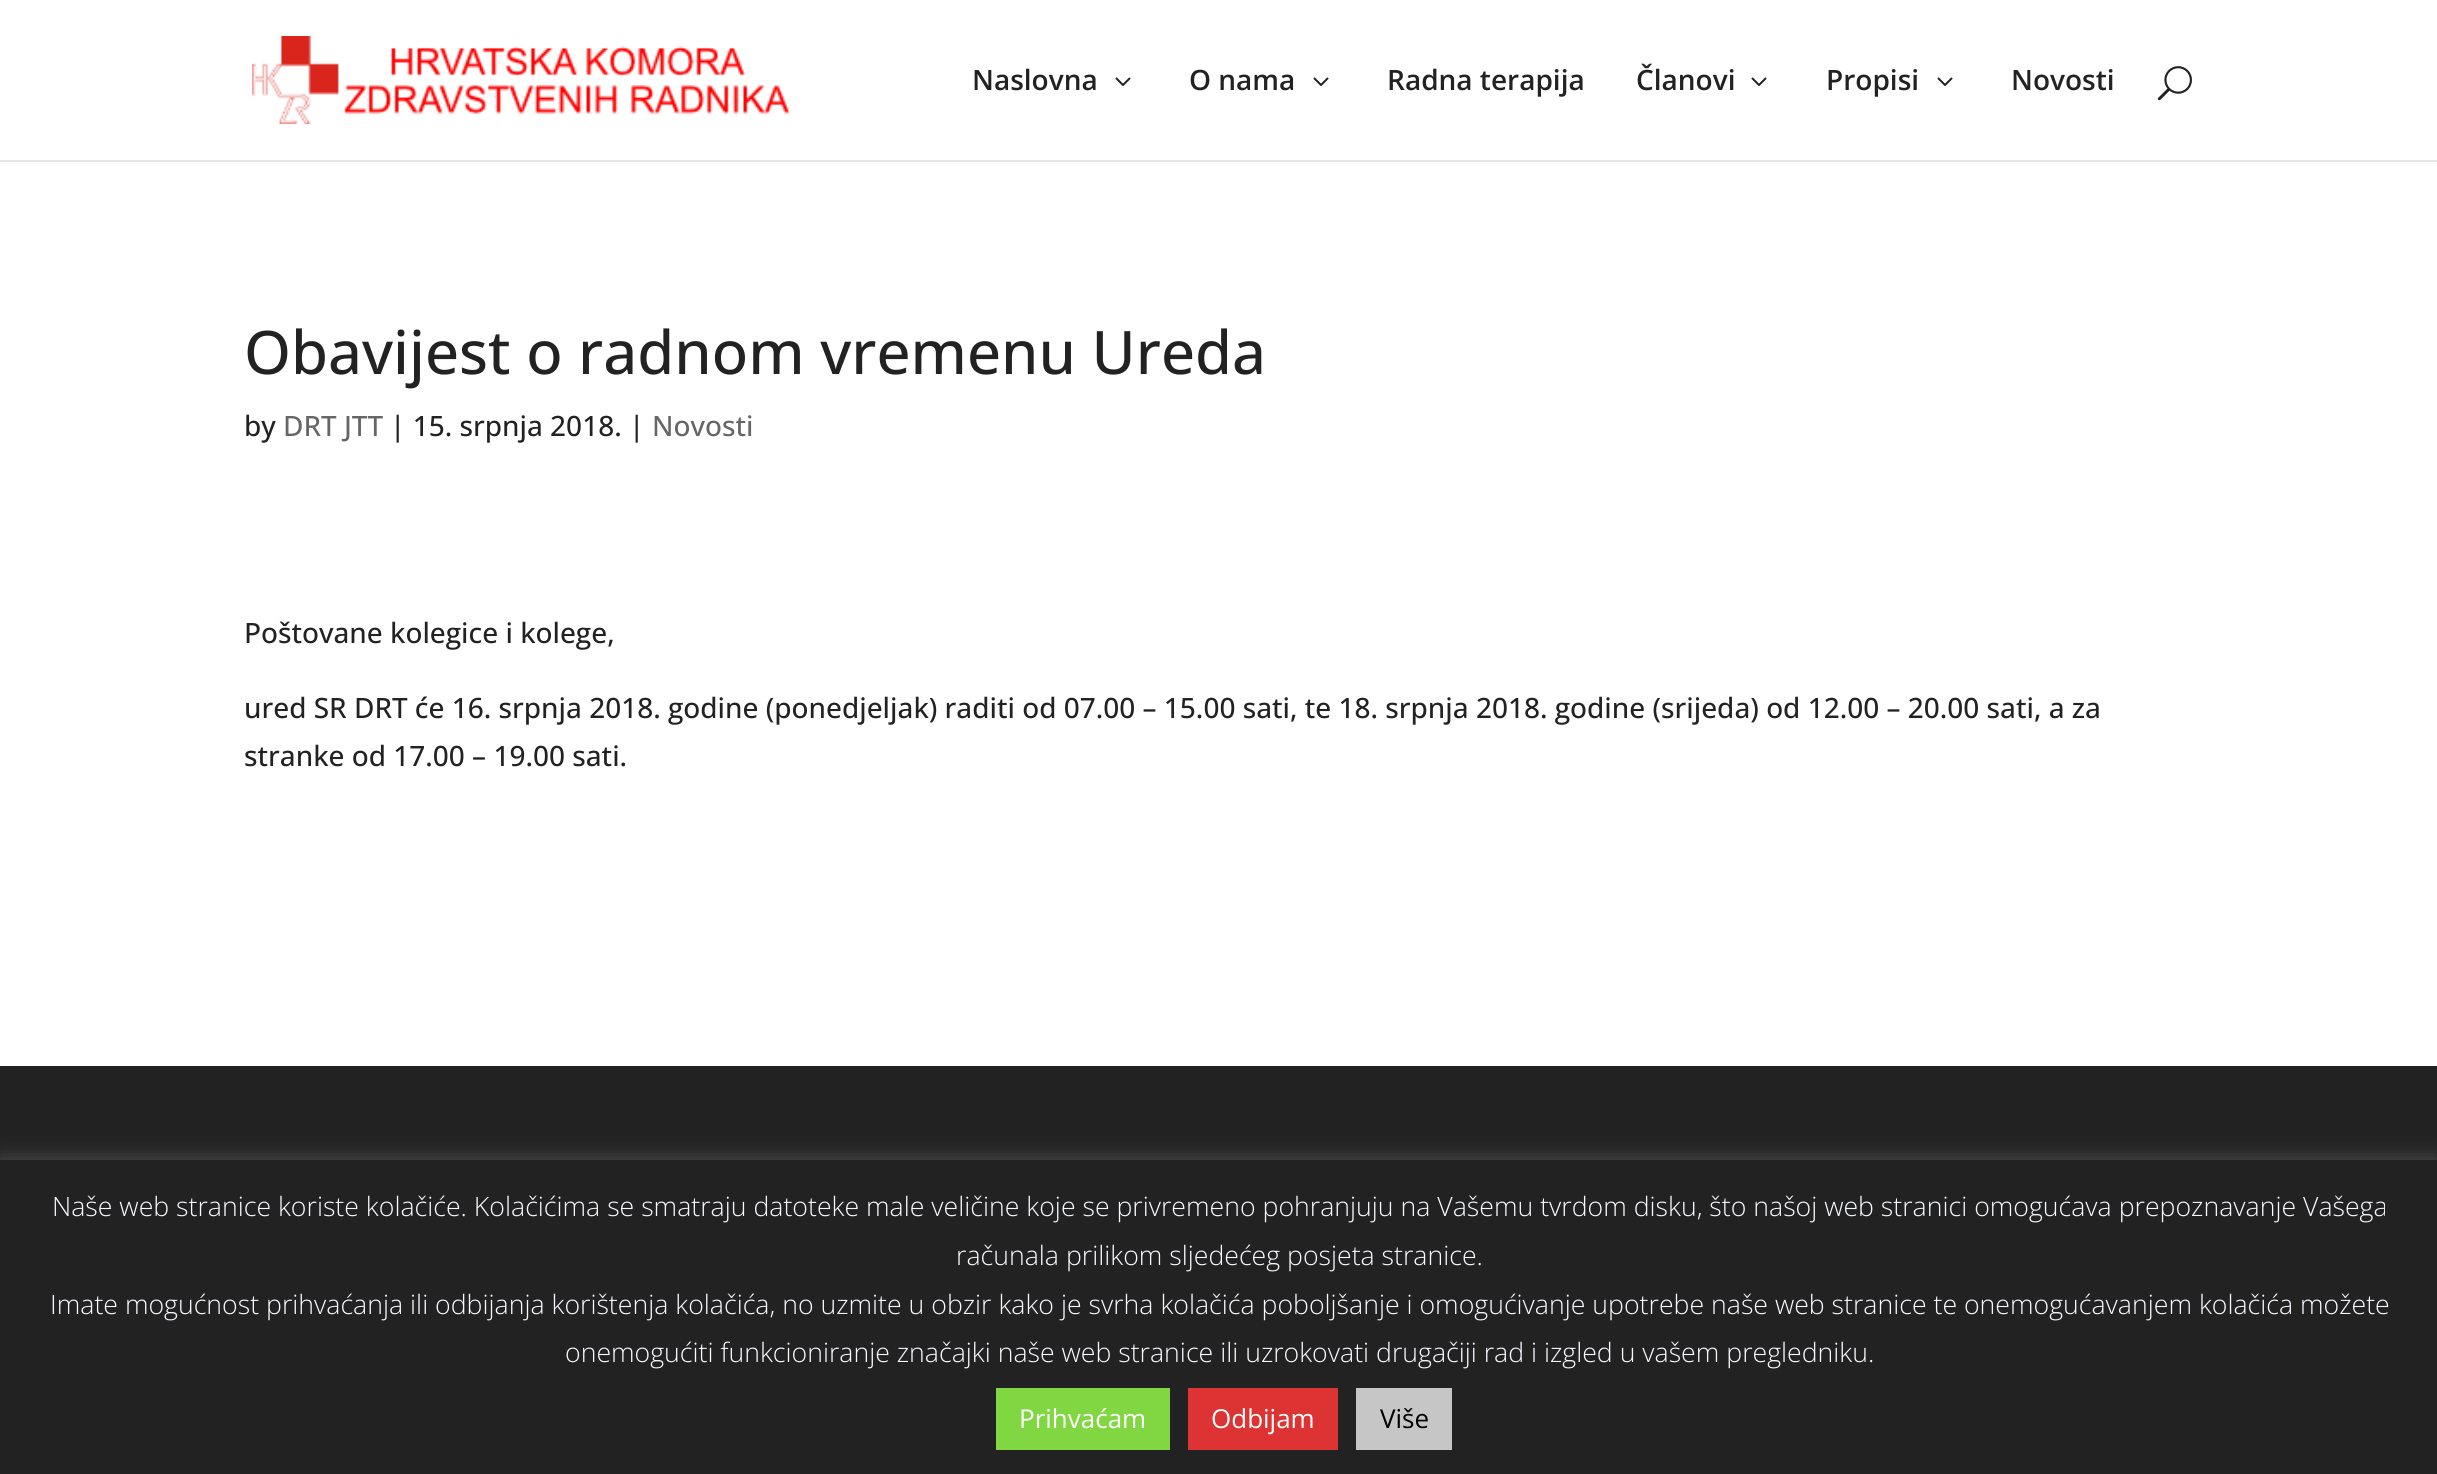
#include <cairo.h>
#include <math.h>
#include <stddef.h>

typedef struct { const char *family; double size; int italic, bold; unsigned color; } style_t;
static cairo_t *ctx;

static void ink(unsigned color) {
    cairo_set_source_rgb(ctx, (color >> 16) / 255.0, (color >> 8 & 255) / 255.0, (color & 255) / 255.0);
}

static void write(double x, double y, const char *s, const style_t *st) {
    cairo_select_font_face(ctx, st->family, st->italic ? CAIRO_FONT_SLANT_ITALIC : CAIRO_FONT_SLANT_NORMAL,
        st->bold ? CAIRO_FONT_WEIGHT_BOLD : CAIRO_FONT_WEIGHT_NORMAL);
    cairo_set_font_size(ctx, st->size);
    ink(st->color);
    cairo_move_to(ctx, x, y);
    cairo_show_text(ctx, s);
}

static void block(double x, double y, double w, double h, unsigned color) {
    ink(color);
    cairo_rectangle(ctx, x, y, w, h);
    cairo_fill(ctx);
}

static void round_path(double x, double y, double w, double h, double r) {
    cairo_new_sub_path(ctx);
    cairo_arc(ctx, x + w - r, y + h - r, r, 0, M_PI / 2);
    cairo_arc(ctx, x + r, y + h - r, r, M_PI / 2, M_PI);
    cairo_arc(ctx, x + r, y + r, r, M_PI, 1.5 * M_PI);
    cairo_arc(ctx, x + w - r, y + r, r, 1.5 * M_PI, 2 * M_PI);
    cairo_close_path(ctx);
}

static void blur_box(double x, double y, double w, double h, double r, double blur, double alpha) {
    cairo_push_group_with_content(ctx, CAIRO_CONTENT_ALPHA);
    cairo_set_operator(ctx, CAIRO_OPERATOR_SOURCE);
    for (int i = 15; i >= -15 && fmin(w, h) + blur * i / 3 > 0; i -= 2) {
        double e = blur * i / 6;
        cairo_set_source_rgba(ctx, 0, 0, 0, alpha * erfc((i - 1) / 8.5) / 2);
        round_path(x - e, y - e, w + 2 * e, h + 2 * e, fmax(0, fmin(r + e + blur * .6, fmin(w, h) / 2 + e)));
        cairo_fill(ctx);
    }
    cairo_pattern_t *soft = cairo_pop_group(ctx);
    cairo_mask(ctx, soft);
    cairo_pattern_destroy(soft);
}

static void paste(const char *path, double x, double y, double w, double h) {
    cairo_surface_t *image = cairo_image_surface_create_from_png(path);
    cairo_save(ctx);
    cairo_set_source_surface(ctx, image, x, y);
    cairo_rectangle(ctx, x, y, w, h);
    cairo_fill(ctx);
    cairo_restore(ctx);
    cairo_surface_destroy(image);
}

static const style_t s1 = {"Open Sans SemiBold", 28, 0, 0, 0x222222};
static const style_t s2 = {"Open Sans Medium", 60, 0, 0, 0x222222};
static const style_t s3 = {"Open Sans Medium", 28, 0, 0, 0x222222};
static const style_t s4 = {"Open Sans Medium", 28, 0, 0, 0x666666};
static const style_t s5 = {"Open Sans Light", 26.67, 0, 0, 0xf7f9ff};
static const style_t s6 = {"Open Sans", 26, 0, 0, 0xffffff};
static const style_t s7 = {"Open Sans", 26, 0, 0, 0x000000};

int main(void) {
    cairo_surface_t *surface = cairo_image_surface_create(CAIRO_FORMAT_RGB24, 2437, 1474);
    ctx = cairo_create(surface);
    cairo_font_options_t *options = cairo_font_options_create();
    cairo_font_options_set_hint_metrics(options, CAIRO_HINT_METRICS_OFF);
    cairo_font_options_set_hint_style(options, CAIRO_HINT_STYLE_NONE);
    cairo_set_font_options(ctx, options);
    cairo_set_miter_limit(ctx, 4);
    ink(0xffffff);
    cairo_paint(ctx);
    block(0, 160, 2437, 2, 0xe6e6e6);
    paste("pic1.png", 252, 36, 538, 88);
    write(972, 90, "Naslovna", &s1);
    paste("pic2.png", 1115, 77, 16, 9);
    write(1189, 90, "O nama", &s1);
    paste("pic2.png", 1313, 77, 16, 9);
    write(1387, 90, "Radna terapija", &s1);
    write(1636, 90, "Članovi", &s1);
    paste("pic2.png", 1751, 77, 16, 9);
    write(1826, 90, "Propisi", &s1);
    paste("pic2.png", 1937, 77, 16, 9);
    write(2011, 90, "Novosti", &s1);
    paste("pic3.png", 2157, 66, 35, 35);
    write(244, 374, "Obavijest o radnom vremenu Ureda", &s2);
    write(244, 436, "by", &s3);
    write(283, 436, "DRT JTT", &s4);
    write(390, 436, "| 15. srpnja 2018. |", &s3);
    write(652, 436, "Novosti", &s4);
    write(244, 643, "Poštovane kolegice i kolege,", &s3);
    write(244, 718, "ured SR DRT će 16. srpnja 2018. godine (ponedjeljak) raditi od 07.00 – 15.00 sati, te 18. srpnja 2018. godine (srijeda) od 12.00 – 20.00 sati, a za", &s3);
    write(244, 766, "stranke od 17.00 – 19.00 sati.", &s3);
    block(0, 1066, 2437, 94, 0x222222);
    ink(0xacabab);
    blur_box(0, 1158, 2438, 314, 0, 10, 0.3);
    block(0, 1160, 2437, 314, 0x222222);
    write(52, 1216, "Naše web stranice koriste kolačiće. Kolačićima se smatraju datoteke male veličine koje se privremeno pohranjuju na Vašemu tvrdom disku, što našoj web stranici omogućava prepoznavanje Vašega", &s5);
    write(956, 1265, "računala prilikom sljedećeg posjeta stranice.", &s5);
    write(50, 1314, "Imate mogućnost prihvaćanja ili odbijanja korištenja kolačića, no uzmite u obzir kako je svrha kolačića poboljšanje i omogućivanje upotrebe naše web stranice te onemogućavanjem kolačića možete", &s5);
    write(565, 1362, "onemogućiti funkcioniranje značajki naše web stranice ili uzrokovati drugačiji rad i izgled u vašem pregledniku.", &s5);
    block(996, 1388, 174, 62, 0x81d742);
    write(1019, 1428, "Prihvaćam", &s6);
    block(1188, 1388, 150, 62, 0xdd3333);
    write(1211, 1428, "Odbijam", &s6);
    block(1356, 1388, 96, 62, 0xc6c6c6);
    write(1380, 1428, "Više", &s7);
    cairo_surface_write_to_png(surface, "screenshot.png");
    cairo_font_options_destroy(options);
    cairo_destroy(ctx);
    cairo_surface_destroy(surface);
    return 0;
}
